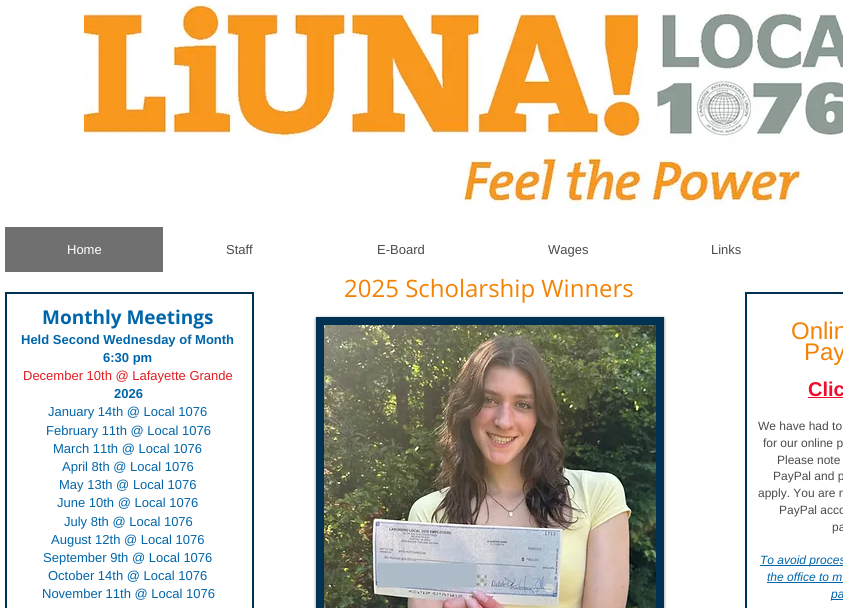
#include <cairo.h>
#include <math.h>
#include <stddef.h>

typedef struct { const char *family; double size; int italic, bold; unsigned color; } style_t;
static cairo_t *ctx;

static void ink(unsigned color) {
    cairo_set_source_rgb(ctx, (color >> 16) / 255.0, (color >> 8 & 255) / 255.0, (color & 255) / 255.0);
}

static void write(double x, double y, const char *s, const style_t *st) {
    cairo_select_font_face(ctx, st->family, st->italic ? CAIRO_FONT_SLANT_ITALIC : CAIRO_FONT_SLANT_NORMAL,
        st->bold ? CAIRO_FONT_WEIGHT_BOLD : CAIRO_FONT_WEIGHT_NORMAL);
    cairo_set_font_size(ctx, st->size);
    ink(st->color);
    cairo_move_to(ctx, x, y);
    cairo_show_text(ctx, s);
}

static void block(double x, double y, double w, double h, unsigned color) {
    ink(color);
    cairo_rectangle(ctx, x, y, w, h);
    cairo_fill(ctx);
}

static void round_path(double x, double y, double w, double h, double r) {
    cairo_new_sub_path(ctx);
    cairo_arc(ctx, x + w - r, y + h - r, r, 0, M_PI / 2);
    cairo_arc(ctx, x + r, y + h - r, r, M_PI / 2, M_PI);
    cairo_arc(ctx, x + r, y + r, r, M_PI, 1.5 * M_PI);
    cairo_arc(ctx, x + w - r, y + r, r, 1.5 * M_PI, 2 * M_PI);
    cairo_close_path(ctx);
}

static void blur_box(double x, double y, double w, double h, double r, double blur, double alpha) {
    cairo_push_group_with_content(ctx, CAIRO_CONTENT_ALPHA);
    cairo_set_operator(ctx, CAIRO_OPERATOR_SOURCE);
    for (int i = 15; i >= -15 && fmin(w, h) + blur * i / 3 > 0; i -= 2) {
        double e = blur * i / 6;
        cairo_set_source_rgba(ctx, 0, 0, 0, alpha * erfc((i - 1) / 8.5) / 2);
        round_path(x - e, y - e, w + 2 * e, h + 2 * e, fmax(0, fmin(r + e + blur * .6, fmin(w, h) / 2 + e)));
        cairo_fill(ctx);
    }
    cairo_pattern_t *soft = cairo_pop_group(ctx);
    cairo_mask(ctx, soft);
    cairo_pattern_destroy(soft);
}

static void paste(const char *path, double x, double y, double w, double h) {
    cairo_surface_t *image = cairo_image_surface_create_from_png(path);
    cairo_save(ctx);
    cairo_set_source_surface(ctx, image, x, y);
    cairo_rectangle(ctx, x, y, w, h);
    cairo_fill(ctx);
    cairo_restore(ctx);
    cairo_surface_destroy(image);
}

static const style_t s1 = {"Liberation Sans", 13, 0, 0, 0xffffff};
static const style_t s2 = {"Liberation Sans", 13, 0, 0, 0x4a4a4a};
static const style_t s3 = {"Open Sans", 24, 0, 0, 0xf48204};
static const style_t s4 = {"Open Sans", 19, 0, 1, 0x0065a9};
static const style_t s5 = {"Liberation Sans", 13, 0, 1, 0x0065a9};
static const style_t s6 = {"Liberation Sans", 13, 0, 0, 0xe21c21};
static const style_t s7 = {"Liberation Sans", 13, 0, 0, 0x0065a9};
static const style_t s8 = {"Liberation Sans", 24, 0, 0, 0xf48204};
static const style_t s9 = {"Liberation Sans", 20, 0, 1, 0xf00c2a};
static const style_t s10 = {"Liberation Sans", 12, 0, 0, 0x4a4a4a};
static const style_t s11 = {"Liberation Sans", 12, 1, 0, 0x0065a9};

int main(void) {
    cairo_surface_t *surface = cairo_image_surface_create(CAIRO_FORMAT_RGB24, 843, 608);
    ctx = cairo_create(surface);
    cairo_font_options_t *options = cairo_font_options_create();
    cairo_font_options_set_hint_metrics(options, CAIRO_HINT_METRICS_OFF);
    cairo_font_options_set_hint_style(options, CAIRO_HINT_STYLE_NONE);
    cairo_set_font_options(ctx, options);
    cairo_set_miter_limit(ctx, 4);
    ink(0xffffff);
    cairo_paint(ctx);
    paste("pic1.png", 84, 5, 759, 204);
    block(5, 227, 158, 45, 0x717070);
    write(67, 254, "Home", &s1);
    write(226, 254, "Staff", &s2);
    write(377, 254, "E-Board", &s2);
    write(548, 254, "Wages", &s2);
    write(711, 254, "Links", &s2);
    write(344, 297, "2025 Scholarship Winners", &s3);
    cairo_rectangle(ctx, 6, 293, 247, 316);
    ink(0x003254);
    cairo_stroke(ctx);
    write(42, 324, "Monthly Meetings", &s4);
    write(21, 344, "Held Second Wednesday of Month", &s5);
    write(103, 362, "6:30 pm", &s5);
    write(23, 380, "December 10th @ Lafayette Grande", &s6);
    write(114, 398, "2026", &s5);
    write(48, 416, "January 14th @ Local 1076", &s7);
    write(46, 435, "February 11th @ Local 1076", &s7);
    write(53, 453, "March 11th @ Local 1076", &s7);
    write(62, 471, "April 8th @ Local 1076", &s7);
    write(59, 489, "May 13th @ Local 1076", &s7);
    write(57, 507, "June 10th @ Local 1076", &s7);
    write(64, 526, "July 8th @ Local 1076", &s7);
    write(51, 544, "August 12th @ Local 1076", &s7);
    write(43, 562, "September 9th @ Local 1076", &s7);
    write(48, 580, "October 14th @ Local 1076", &s7);
    write(42, 598, "November 11th @ Local 1076", &s7);
    ink(0x000000);
    blur_box(316, 318, 348, 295, 0, 1.5, 0.5);
    block(316, 317, 348, 291, 0x003254);
    paste("pic2.png", 324, 325, 332, 283);
    cairo_rectangle(ctx, 746, 293, 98, 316);
    cairo_stroke(ctx);
    write(791, 339, "Onlin", &s8);
    write(804, 360, "Pay", &s8);
    write(808, 396, "Clic", &s9);
    block(808, 397, 35, 1, 0xf00c2a);
    write(758, 430, "We have had to", &s10);
    write(763, 447, "for our online p", &s10);
    write(777, 464, "Please note", &s10);
    write(773, 480, "PayPal and p", &s10);
    write(758, 497, "apply. You are n", &s10);
    write(779, 514, "PayPal acco", &s10);
    write(832, 531, "pa", &s10);
    block(760, 565, 83, 1, 0x0065a9);
    write(760, 564, "To avoid proces", &s11);
    write(767, 581, "the office to m", &s11);
    block(767, 582, 76, 1, 0x0065a9);
    block(831, 599, 12, 1, 0x0065a9);
    write(831, 598, "pa", &s11);
    cairo_surface_write_to_png(surface, "screenshot.png");
    cairo_font_options_destroy(options);
    cairo_destroy(ctx);
    cairo_surface_destroy(surface);
    return 0;
}
